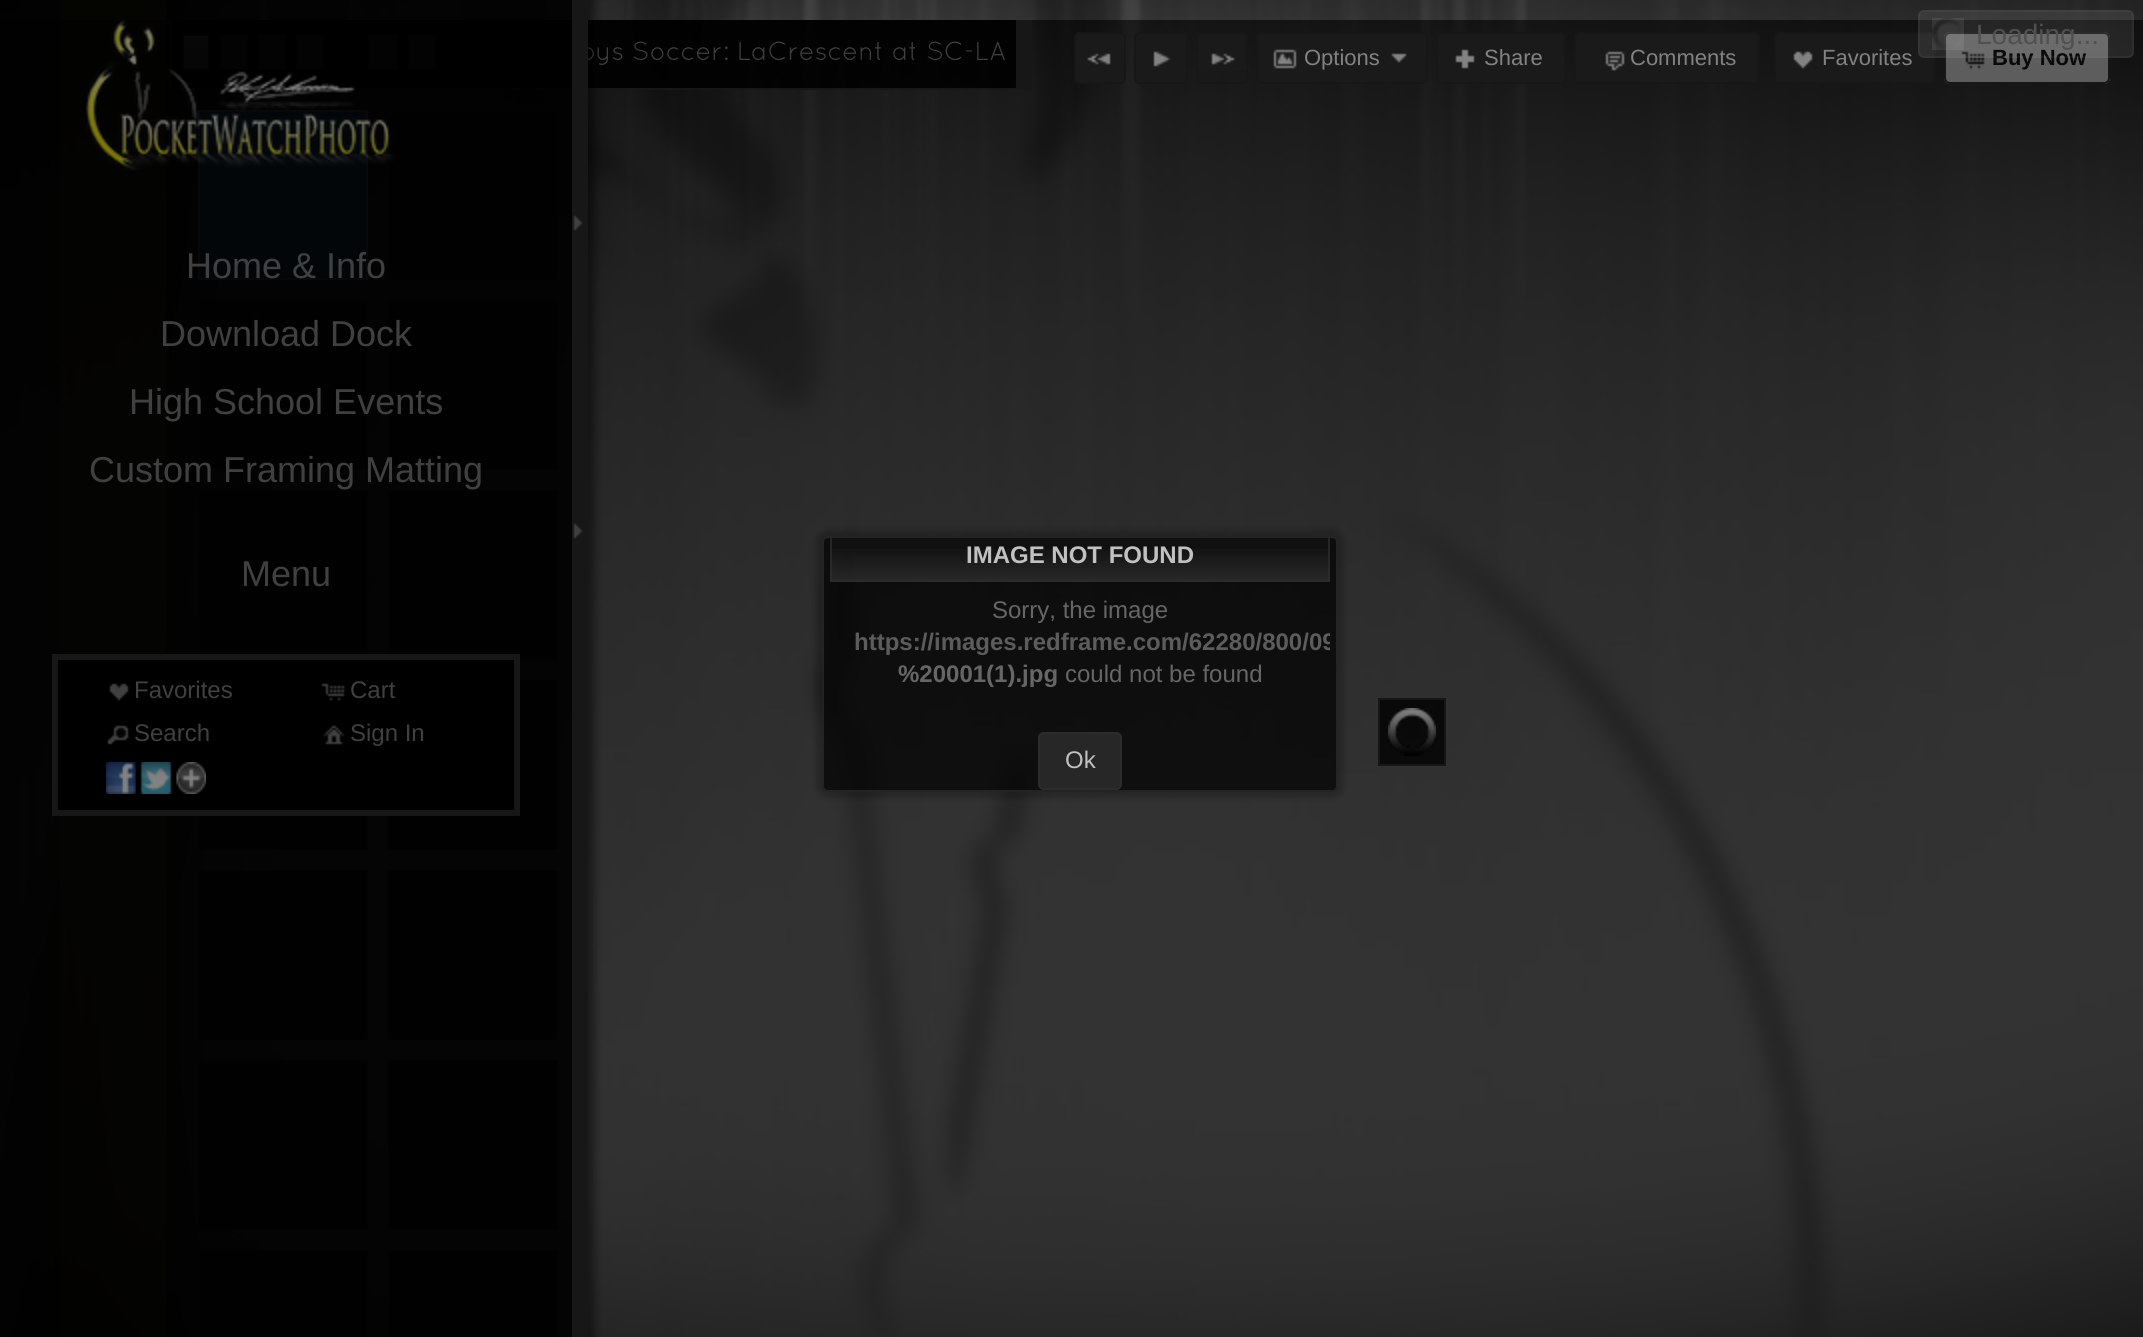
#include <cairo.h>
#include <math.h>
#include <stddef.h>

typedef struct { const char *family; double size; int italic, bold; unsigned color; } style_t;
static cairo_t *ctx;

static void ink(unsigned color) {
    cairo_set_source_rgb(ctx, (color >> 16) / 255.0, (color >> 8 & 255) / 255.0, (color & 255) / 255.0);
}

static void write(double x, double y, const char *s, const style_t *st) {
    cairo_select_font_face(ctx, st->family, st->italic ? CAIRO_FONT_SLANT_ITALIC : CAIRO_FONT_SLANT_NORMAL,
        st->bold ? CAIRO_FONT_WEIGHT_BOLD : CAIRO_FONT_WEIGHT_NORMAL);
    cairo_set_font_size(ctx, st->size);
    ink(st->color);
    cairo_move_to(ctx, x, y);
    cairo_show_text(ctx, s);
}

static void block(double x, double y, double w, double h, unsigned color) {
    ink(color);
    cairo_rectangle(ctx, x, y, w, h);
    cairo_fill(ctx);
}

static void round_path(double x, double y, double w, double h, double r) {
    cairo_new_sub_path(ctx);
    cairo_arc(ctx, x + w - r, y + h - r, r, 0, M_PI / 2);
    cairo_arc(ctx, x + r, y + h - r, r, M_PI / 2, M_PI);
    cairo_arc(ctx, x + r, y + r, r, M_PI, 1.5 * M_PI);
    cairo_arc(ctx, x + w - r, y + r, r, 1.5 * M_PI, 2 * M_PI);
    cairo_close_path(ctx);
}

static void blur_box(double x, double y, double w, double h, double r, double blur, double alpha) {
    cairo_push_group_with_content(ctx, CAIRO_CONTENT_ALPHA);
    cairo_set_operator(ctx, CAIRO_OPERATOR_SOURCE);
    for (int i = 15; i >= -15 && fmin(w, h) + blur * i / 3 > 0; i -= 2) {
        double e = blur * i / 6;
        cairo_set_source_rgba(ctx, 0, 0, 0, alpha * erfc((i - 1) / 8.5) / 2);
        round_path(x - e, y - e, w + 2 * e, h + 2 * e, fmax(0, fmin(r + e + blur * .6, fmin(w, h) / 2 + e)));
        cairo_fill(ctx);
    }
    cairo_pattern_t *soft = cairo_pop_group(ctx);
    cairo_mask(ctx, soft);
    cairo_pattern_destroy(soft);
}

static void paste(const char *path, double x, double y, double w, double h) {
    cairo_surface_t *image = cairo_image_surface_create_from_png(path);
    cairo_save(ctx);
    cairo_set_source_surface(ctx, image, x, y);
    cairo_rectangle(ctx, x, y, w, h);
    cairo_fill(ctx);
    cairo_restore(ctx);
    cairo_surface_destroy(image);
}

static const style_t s1 = {"Liberation Sans", 22, 0, 1, 0x090909};
static const style_t s2 = {"Liberation Sans", 28, 0, 0, 0x505050};
static const style_t s3 = {"Quicksand", 26, 0, 0, 0x404040};
static const style_t s4 = {"Liberation Sans", 22, 0, 0, 0x828282};
static const style_t s5 = {"Liberation Sans", 36, 0, 0, 0x404040};
static const style_t s6 = {"Liberation Sans", 24, 0, 0, 0x404040};
static const style_t s7 = {"Liberation Sans", 24, 0, 1, 0xc1c1c1};
static const style_t s8 = {"Liberation Sans", 24, 0, 0, 0x666666};
static const style_t s9 = {"Liberation Sans", 24, 0, 1, 0x5c5c5c};
static const style_t s10 = {"Liberation Sans", 24, 0, 1, 0x666666};
static const style_t s11 = {"Liberation Sans", 24, 0, 0, 0xc1c1c1};

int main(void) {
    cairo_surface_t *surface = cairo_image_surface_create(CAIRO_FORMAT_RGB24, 2143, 1337);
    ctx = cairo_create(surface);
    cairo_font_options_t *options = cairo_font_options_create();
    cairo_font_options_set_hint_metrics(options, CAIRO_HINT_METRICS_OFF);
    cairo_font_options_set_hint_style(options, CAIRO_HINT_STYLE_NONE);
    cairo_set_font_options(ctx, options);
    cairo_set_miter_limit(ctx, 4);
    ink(0xffffff);
    cairo_paint(ctx);
    paste("pic1.png", 0, 0, 2143, 1337);
    paste("pic16.png", 1774, 32, 162, 52);
    round_path(1775, 33, 160, 50, 5);
    ink(0x171717);
    cairo_stroke(ctx);
    paste("pic18.png", 1944, 32, 166, 52);
    round_path(1945, 33, 164, 50, 5);
    cairo_stroke(ctx);
    paste("pic19.png", 1961, 51, 24, 18);
    cairo_set_source_rgba(ctx, 0.8, 0.8, 0.8, 0.11);
    round_path(1918, 10, 216, 48, 6);
    cairo_fill(ctx);
    write(1992, 65, "Buy Now", &s1);
    round_path(1919, 11, 214, 46, 5);
    cairo_set_source_rgba(ctx, 0.478, 0.478, 0.478, 0.11);
    cairo_stroke(ctx);
    paste("pic2.png", 1932, 18, 32, 32);
    write(1976, 44, "Loading...", &s2);
    cairo_set_source_rgba(ctx, 0, 0, 0, 0.9);
    cairo_rectangle(ctx, 172, 20, 284, 68);
    cairo_fill(ctx);
    block(170, 88, 245, 2, 0x171717);
    block(170, 20, 2, 70, 0x171717);
    block(184, 47, 24, 21, 0x404040);
    block(184, 36, 24, 11, 0x434343);
    cairo_rectangle(ctx, 183, 35, 26, 34);
    ink(0x171717);
    cairo_stroke(ctx);
    ink(0x1a1a1a);
    cairo_rectangle(ctx, 221, 35, 26, 34);
    cairo_fill_preserve(ctx);
    ink(0x171717);
    cairo_stroke(ctx);
    ink(0x1a1a1a);
    cairo_rectangle(ctx, 259, 35, 26, 34);
    cairo_fill_preserve(ctx);
    ink(0x171717);
    cairo_stroke(ctx);
    ink(0x1a1a1a);
    cairo_rectangle(ctx, 297, 35, 26, 34);
    cairo_fill_preserve(ctx);
    ink(0x171717);
    cairo_stroke(ctx);
    ink(0x1a1a1a);
    cairo_rectangle(ctx, 369, 35, 28, 34);
    cairo_fill_preserve(ctx);
    ink(0x171717);
    cairo_stroke(ctx);
    ink(0x1a1a1a);
    cairo_rectangle(ctx, 409, 35, 26, 34);
    cairo_fill_preserve(ctx);
    ink(0x171717);
    cairo_stroke(ctx);
    cairo_set_source_rgba(ctx, 0, 0, 0, 0.9);
    cairo_rectangle(ctx, 456, 20, 560, 68);
    cairo_fill(ctx);
    block(1016, 20, 16, 68, 0x171717);
    block(471, 88, 561, 2, 0x171717);
    write(580, 60, "oys Soccer: LaCrescent at SC-LA", &s3);
    paste("pic3.png", 1074, 32, 52, 52);
    round_path(1075, 33, 50, 50, 5);
    ink(0x171717);
    cairo_stroke(ctx);
    paste("pic4.png", 1087, 53, 24, 12);
    paste("pic5.png", 1134, 32, 54, 52);
    round_path(1135, 33, 52, 50, 5);
    cairo_stroke(ctx);
    paste("pic6.png", 1153, 51, 18, 16);
    paste("pic7.png", 1196, 32, 52, 39);
    round_path(1197, 33, 50, 50, 5);
    cairo_stroke(ctx);
    paste("pic8.png", 1211, 53, 24, 12);
    paste("pic9.png", 1256, 32, 170, 52);
    round_path(1257, 33, 170, 50, 5);
    cairo_stroke(ctx);
    paste("pic10.png", 1273, 49, 24, 20);
    write(1304, 65, "Options", &s4);
    paste("pic11.png", 1391, 53, 16, 10);
    paste("pic12.png", 1436, 32, 130, 52);
    round_path(1437, 33, 128, 50, 5);
    ink(0x171717);
    cairo_stroke(ctx);
    paste("pic13.png", 1455, 49, 20, 20);
    write(1484, 65, "Share", &s4);
    paste("pic14.png", 1574, 32, 186, 52);
    round_path(1575, 33, 184, 50, 5);
    ink(0x171717);
    cairo_stroke(ctx);
    paste("pic15.png", 1605, 51, 20, 20);
    write(1630, 65, "Comments", &s4);
    paste("pic17.png", 1793, 51, 20, 18);
    write(1822, 65, "Favorites", &s4);
    ink(0x1a3e5f);
    cairo_rectangle(ctx, 199, 111, 168, 168);
    cairo_fill_preserve(ctx);
    ink(0x3b5268);
    cairo_stroke(ctx);
    ink(0x090909);
    cairo_rectangle(ctx, 389, 111, 168, 168);
    cairo_fill_preserve(ctx);
    ink(0x171717);
    cairo_stroke(ctx);
    ink(0x090909);
    cairo_rectangle(ctx, 199, 301, 168, 168);
    cairo_fill_preserve(ctx);
    ink(0x171717);
    cairo_stroke(ctx);
    ink(0x090909);
    cairo_rectangle(ctx, 389, 301, 168, 168);
    cairo_fill_preserve(ctx);
    ink(0x171717);
    cairo_stroke(ctx);
    block(200, 492, 166, 162, 0x090909);
    cairo_rectangle(ctx, 199, 491, 168, 168);
    ink(0x171717);
    cairo_stroke(ctx);
    ink(0x090909);
    cairo_rectangle(ctx, 389, 491, 168, 168);
    cairo_fill_preserve(ctx);
    ink(0x171717);
    cairo_stroke(ctx);
    block(200, 816, 166, 32, 0x090909);
    cairo_rectangle(ctx, 199, 681, 168, 168);
    ink(0x171717);
    cairo_stroke(ctx);
    ink(0x090909);
    cairo_rectangle(ctx, 389, 681, 168, 168);
    cairo_fill_preserve(ctx);
    ink(0x171717);
    cairo_stroke(ctx);
    ink(0x090909);
    cairo_rectangle(ctx, 199, 871, 168, 168);
    cairo_fill_preserve(ctx);
    ink(0x171717);
    cairo_stroke(ctx);
    ink(0x090909);
    cairo_rectangle(ctx, 389, 871, 168, 168);
    cairo_fill_preserve(ctx);
    ink(0x171717);
    cairo_stroke(ctx);
    ink(0x090909);
    cairo_rectangle(ctx, 199, 1061, 168, 168);
    cairo_fill_preserve(ctx);
    ink(0x171717);
    cairo_stroke(ctx);
    ink(0x090909);
    cairo_rectangle(ctx, 389, 1061, 168, 168);
    cairo_fill_preserve(ctx);
    ink(0x171717);
    cairo_stroke(ctx);
    ink(0x090909);
    cairo_rectangle(ctx, 199, 1251, 168, 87);
    cairo_fill_preserve(ctx);
    ink(0x171717);
    cairo_stroke(ctx);
    ink(0x090909);
    cairo_rectangle(ctx, 389, 1251, 168, 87);
    cairo_fill_preserve(ctx);
    ink(0x171717);
    cairo_stroke(ctx);
    cairo_set_source_rgba(ctx, 0, 0, 0, 0.8);
    cairo_rectangle(ctx, 1380, 700, 64, 64);
    cairo_fill(ctx);
    paste("pic20.png", 1388, 708, 48, 48);
    cairo_rectangle(ctx, 1379, 699, 66, 66);
    ink(0x171717);
    cairo_stroke(ctx);
    cairo_save(ctx);
    cairo_rectangle(ctx, 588, 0, 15, 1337);
    cairo_clip(ctx);
    ink(0x000000);
    blur_box(-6, -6, 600, 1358, 0, 5, 0.5);
    cairo_restore(ctx);
    cairo_set_source_rgba(ctx, 0, 0, 0, 0.9);
    cairo_rectangle(ctx, 0, 0, 572, 1337);
    cairo_fill(ctx);
    block(572, 0, 16, 1337, 0x171717);
    paste("pic21.png", 86, 20, 309, 150);
    paste("pic22.png", 573, 215, 10, 16);
    write(186, 278, "Home & Info", &s5);
    write(160, 346, "Download Dock", &s5);
    write(129, 414, "High School Events", &s5);
    write(89, 482, "Custom Framing Matting", &s5);
    paste("pic22.png", 573, 523, 10, 16);
    write(241, 586, "Menu", &s5);
    ink(0x000000);
    cairo_rectangle(ctx, 55, 657, 462, 156);
    cairo_fill_preserve(ctx);
    ink(0x171717);
    cairo_set_line_width(ctx, 6);
    cairo_stroke(ctx);
    paste("pic23.png", 109, 683, 20, 18);
    write(134, 698, "Favorites", &s6);
    paste("pic24.png", 321, 683, 24, 18);
    write(350, 698, "Cart", &s6);
    paste("pic25.png", 107, 725, 22, 20);
    write(134, 741, "Search", &s6);
    paste("pic26.png", 323, 725, 22, 20);
    write(350, 741, "Sign In", &s6);
    paste("pic27.png", 106, 762, 100, 32);
    cairo_save(ctx);
    cairo_set_fill_rule(ctx, CAIRO_FILL_RULE_EVEN_ODD);
    cairo_new_path(ctx);
    cairo_move_to(ctx, 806, 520);
    cairo_line_to(ctx, 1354, 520);
    cairo_line_to(ctx, 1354, 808);
    cairo_line_to(ctx, 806, 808);
    cairo_close_path(ctx);
    cairo_move_to(ctx, 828, 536);
    cairo_line_to(ctx, 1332, 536);
    cairo_curve_to(ctx, 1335.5, 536, 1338, 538.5, 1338, 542);
    cairo_line_to(ctx, 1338, 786);
    cairo_curve_to(ctx, 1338, 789.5, 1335.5, 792, 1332, 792);
    cairo_line_to(ctx, 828, 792);
    cairo_curve_to(ctx, 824.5, 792, 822, 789.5, 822, 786);
    cairo_line_to(ctx, 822, 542);
    cairo_curve_to(ctx, 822, 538.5, 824.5, 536, 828, 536);
    cairo_close_path(ctx);
    cairo_clip(ctx);
    ink(0x000000);
    blur_box(816, 530, 528, 268, 12, 3, 0.21);
    cairo_restore(ctx);
    paste("pic28.png", 822, 536, 516, 256);
    round_path(823, 537, 514, 254, 5);
    cairo_set_source_rgba(ctx, 0.18, 0.18, 0.18, 0.7);
    cairo_set_line_width(ctx, 2);
    cairo_stroke(ctx);
    cairo_set_source_rgba(ctx, 0.067, 0.067, 0.067, 0.7);
    cairo_rectangle(ctx, 830, 538, 500, 44);
    cairo_fill(ctx);
    paste("pic29.png", 830, 549, 500, 33);
    cairo_set_source_rgba(ctx, 0.18, 0.18, 0.18, 0.7);
    cairo_new_path(ctx);
    cairo_move_to(ctx, 1330, 538);
    cairo_line_to(ctx, 1330, 582);
    cairo_line_to(ctx, 830, 582);
    cairo_line_to(ctx, 830, 538);
    cairo_line_to(ctx, 832, 538);
    cairo_line_to(ctx, 832, 580);
    cairo_line_to(ctx, 1328, 580);
    cairo_line_to(ctx, 1328, 538);
    cairo_close_path(ctx);
    cairo_fill(ctx);
    write(966, 563, "IMAGE NOT FOUND", &s7);
    write(992, 618, "Sorry, the image", &s8);
    cairo_save(ctx);
    cairo_rectangle(ctx, 830, 582, 500, 230);
    cairo_clip(ctx);
    write(854, 650, "https://images.redframe.com/62280/800/09", &s9);
    cairo_restore(ctx);
    write(898, 682, "%20001(1).jpg", &s10);
    write(1065, 682, "could not be found", &s8);
    paste("pic30.png", 1038, 732, 84, 58);
    round_path(1039, 733, 82, 56, 5);
    cairo_set_source_rgba(ctx, 0.18, 0.18, 0.18, 0.7);
    cairo_stroke(ctx);
    write(1065, 768, "Ok", &s11);
    cairo_surface_write_to_png(surface, "screenshot.png");
    cairo_font_options_destroy(options);
    cairo_destroy(ctx);
    cairo_surface_destroy(surface);
    return 0;
}
